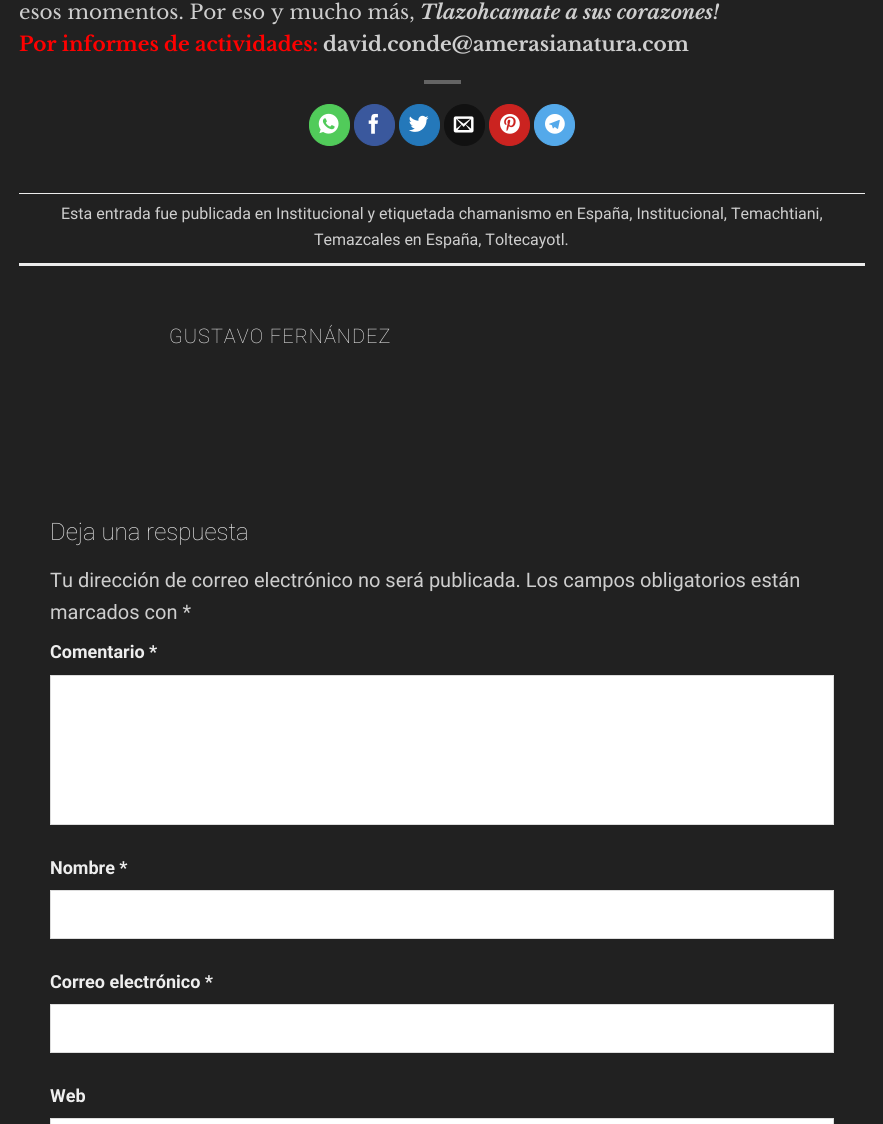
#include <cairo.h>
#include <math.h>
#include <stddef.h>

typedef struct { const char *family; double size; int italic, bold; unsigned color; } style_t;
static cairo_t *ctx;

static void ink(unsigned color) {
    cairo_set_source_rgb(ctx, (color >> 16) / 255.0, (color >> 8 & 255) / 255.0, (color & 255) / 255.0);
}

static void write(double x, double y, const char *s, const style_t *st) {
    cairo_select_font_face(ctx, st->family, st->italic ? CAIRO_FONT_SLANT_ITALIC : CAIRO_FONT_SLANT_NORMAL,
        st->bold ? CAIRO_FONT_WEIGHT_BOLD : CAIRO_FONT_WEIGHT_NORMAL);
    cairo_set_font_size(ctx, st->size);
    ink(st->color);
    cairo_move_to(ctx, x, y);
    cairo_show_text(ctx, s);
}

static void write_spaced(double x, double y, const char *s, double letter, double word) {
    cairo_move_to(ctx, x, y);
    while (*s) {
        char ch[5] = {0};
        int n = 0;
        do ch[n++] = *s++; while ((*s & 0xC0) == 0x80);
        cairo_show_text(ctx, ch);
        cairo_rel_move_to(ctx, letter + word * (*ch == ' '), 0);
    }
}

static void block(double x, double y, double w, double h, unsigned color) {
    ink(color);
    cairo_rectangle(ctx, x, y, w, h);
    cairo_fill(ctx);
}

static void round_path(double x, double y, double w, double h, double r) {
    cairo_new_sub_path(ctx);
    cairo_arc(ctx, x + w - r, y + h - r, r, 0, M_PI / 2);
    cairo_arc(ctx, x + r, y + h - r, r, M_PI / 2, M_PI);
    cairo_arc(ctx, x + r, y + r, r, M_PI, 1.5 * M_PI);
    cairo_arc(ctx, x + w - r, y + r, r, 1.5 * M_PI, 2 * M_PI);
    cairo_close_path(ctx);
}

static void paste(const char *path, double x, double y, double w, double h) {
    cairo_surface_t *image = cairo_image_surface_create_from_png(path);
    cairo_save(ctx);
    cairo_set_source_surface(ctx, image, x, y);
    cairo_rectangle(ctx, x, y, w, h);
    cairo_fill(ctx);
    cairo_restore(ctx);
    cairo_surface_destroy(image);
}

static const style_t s1 = {"Libre Baskerville", 20, 0, 0, 0xcecece};
static const style_t s2 = {"Libre Baskerville", 20, 1, 1, 0xcecece};
static const style_t s3 = {"Libre Baskerville", 20, 0, 1, 0xff0000};
static const style_t s4 = {"Libre Baskerville", 20, 0, 1, 0xcecece};
static const style_t s5 = {"Roboto", 16, 0, 0, 0xcecece};
static const style_t s6 = {"Roboto Thin", 24, 0, 0, 0xeeeeee};
static const style_t s7 = {"Roboto", 20, 0, 0, 0xcecece};
static const style_t s8 = {"Roboto", 18, 0, 1, 0xeeeeee};

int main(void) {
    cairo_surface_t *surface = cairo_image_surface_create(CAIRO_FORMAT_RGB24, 883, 1124);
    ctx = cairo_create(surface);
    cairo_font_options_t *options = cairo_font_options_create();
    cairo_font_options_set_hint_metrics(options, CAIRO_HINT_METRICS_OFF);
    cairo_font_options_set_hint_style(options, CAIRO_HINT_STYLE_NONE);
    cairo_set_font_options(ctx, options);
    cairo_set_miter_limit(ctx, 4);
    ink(0x212121);
    cairo_paint(ctx);
    write(19, 19, "esos momentos. Por eso y mucho más,", &s1);
    write(420, 19, "Tlazohcamate a sus corazones!", &s2);
    write(19, 51, "Por informes de actividades:", &s3);
    write(323, 51, "david.conde@amerasianatura.com", &s4);
    block(424, 80, 37, 4, 0x646464);
    ink(0x51cb5a);
    round_path(309.5, 104.5, 40, 41, 20);
    cairo_fill_preserve(ctx);
    cairo_set_line_width(ctx, 1);
    cairo_stroke(ctx);
    paste("pic1.png", 318, 113, 21, 21);
    ink(0x3a589d);
    round_path(354.5, 104.5, 40, 41, 20);
    cairo_fill_preserve(ctx);
    cairo_stroke(ctx);
    paste("pic2.png", 368, 113, 10, 21);
    ink(0x2478ba);
    round_path(399.5, 104.5, 40, 41, 20);
    cairo_fill_preserve(ctx);
    cairo_stroke(ctx);
    paste("pic3.png", 409, 115, 20, 17);
    ink(0x111111);
    round_path(444.5, 104.5, 40, 41, 20);
    cairo_fill_preserve(ctx);
    cairo_stroke(ctx);
    paste("pic4.png", 453, 116, 21, 17);
    ink(0xcb2320);
    round_path(489.5, 104.5, 40, 41, 20);
    cairo_fill_preserve(ctx);
    cairo_stroke(ctx);
    paste("pic5.png", 500, 114, 20, 20);
    ink(0x54a9ea);
    round_path(534.5, 104.5, 40, 41, 20);
    cairo_fill_preserve(ctx);
    cairo_stroke(ctx);
    paste("pic6.png", 545, 114, 20, 20);
    block(19, 193, 846, 1, 0xececec);
    block(19, 263, 846, 3, 0xececec);
    write(61, 219, "Esta entrada fue publicada en Institucional y etiquetada chamanismo en España, Institucional, Temachtiani,", &s5);
    write(314, 245, "Temazcales en España, Toltecayotl.", &s5);
    cairo_select_font_face(ctx, "Roboto Thin", CAIRO_FONT_SLANT_NORMAL, CAIRO_FONT_WEIGHT_NORMAL);
    cairo_set_font_size(ctx, 20);
    ink(0xeeeeee);
    write_spaced(169, 343, "GUSTAVO FERNÁNDEZ", 1, 0);
    write(50, 540, "Deja una respuesta", &s6);
    write(50, 587, "Tu dirección de correo electrónico no será publicada. Los campos obligatorios están", &s7);
    write(50, 619, "marcados con *", &s7);
    write(50, 658, "Comentario *", &s8);
    ink(0xffffff);
    cairo_rectangle(ctx, 50.5, 675.5, 783, 149);
    cairo_fill_preserve(ctx);
    ink(0xdddddd);
    cairo_stroke(ctx);
    write(50, 874, "Nombre *", &s8);
    ink(0xffffff);
    cairo_rectangle(ctx, 50.5, 890.5, 783, 48);
    cairo_fill_preserve(ctx);
    ink(0xdddddd);
    cairo_stroke(ctx);
    write(50, 988, "Correo electrónico *", &s8);
    ink(0xffffff);
    cairo_rectangle(ctx, 50.5, 1004.5, 783, 48);
    cairo_fill_preserve(ctx);
    ink(0xdddddd);
    cairo_stroke(ctx);
    write(50, 1102, "Web", &s8);
    ink(0xffffff);
    cairo_rectangle(ctx, 50.5, 1118.5, 783, 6);
    cairo_fill_preserve(ctx);
    ink(0xdddddd);
    cairo_stroke(ctx);
    cairo_surface_write_to_png(surface, "screenshot.png");
    cairo_font_options_destroy(options);
    cairo_destroy(ctx);
    cairo_surface_destroy(surface);
    return 0;
}
